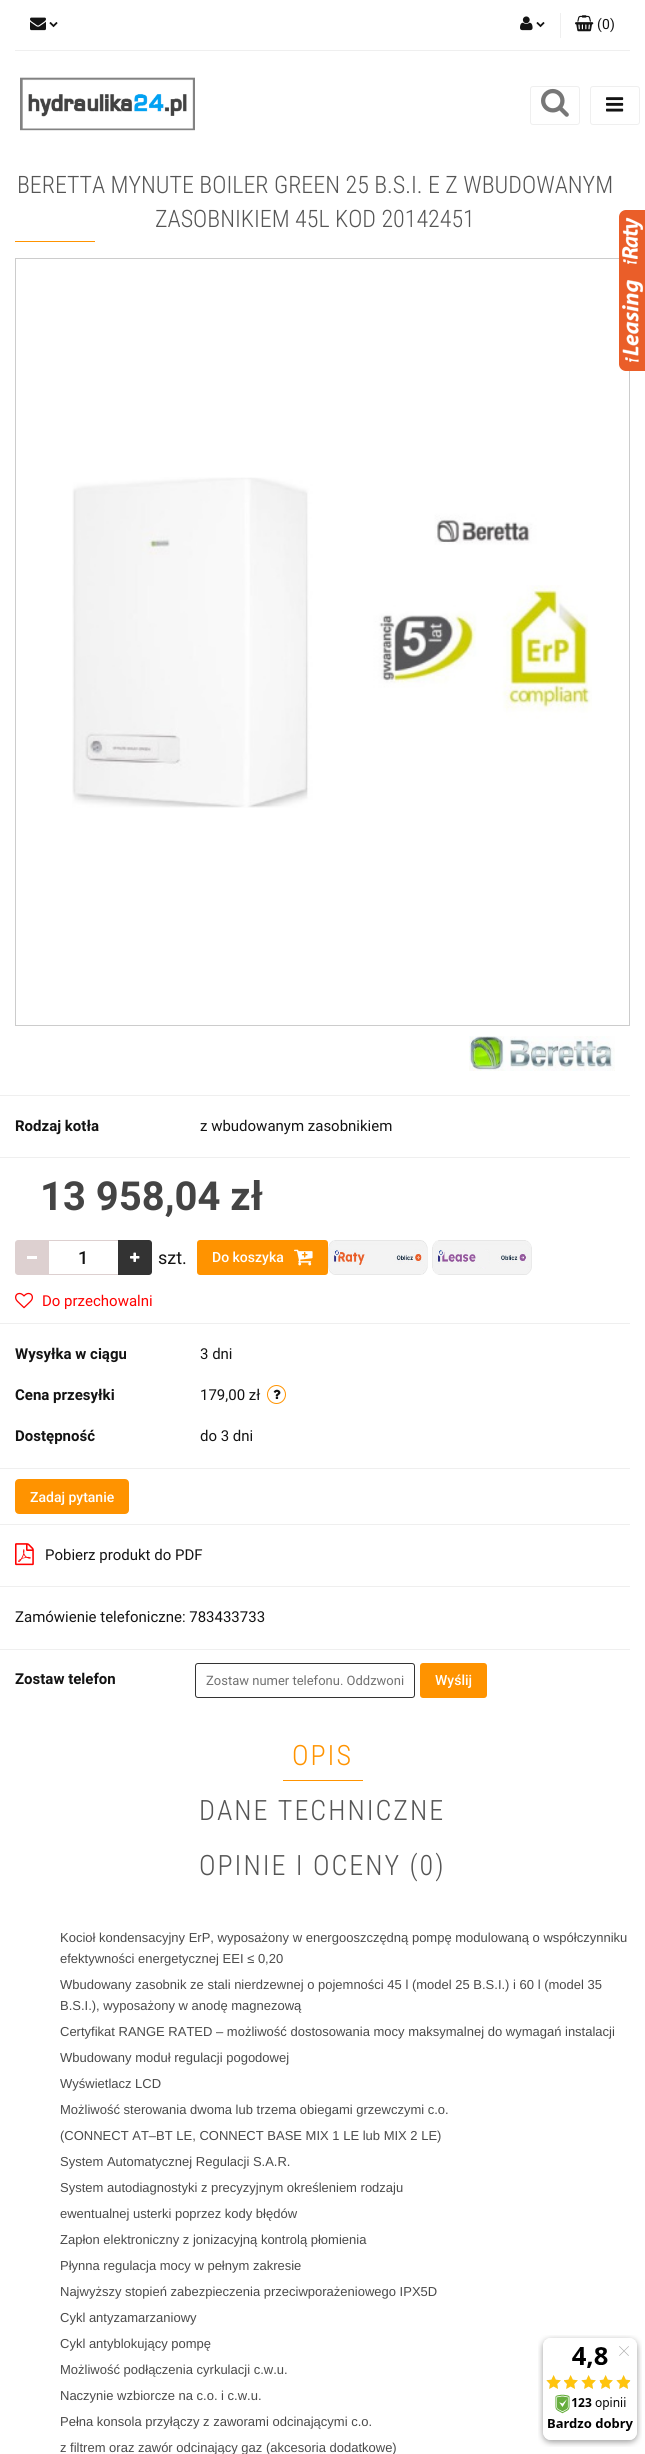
#include <cairo.h>
#include <math.h>
#include <stddef.h>

typedef struct { const char *family; double size; int italic, bold; unsigned color; } style_t;
static cairo_t *ctx;

static void ink(unsigned color) {
    cairo_set_source_rgb(ctx, (color >> 16) / 255.0, (color >> 8 & 255) / 255.0, (color & 255) / 255.0);
}

static void write(double x, double y, const char *s, const style_t *st) {
    cairo_select_font_face(ctx, st->family, st->italic ? CAIRO_FONT_SLANT_ITALIC : CAIRO_FONT_SLANT_NORMAL,
        st->bold ? CAIRO_FONT_WEIGHT_BOLD : CAIRO_FONT_WEIGHT_NORMAL);
    cairo_set_font_size(ctx, st->size);
    ink(st->color);
    cairo_move_to(ctx, x, y);
    cairo_show_text(ctx, s);
}

static void write_spaced(double x, double y, const char *s, double letter, double word) {
    cairo_move_to(ctx, x, y);
    while (*s) {
        char ch[5] = {0};
        int n = 0;
        do ch[n++] = *s++; while ((*s & 0xC0) == 0x80);
        cairo_show_text(ctx, ch);
        cairo_rel_move_to(ctx, letter + word * (*ch == ' '), 0);
    }
}

static void block(double x, double y, double w, double h, unsigned color) {
    ink(color);
    cairo_rectangle(ctx, x, y, w, h);
    cairo_fill(ctx);
}

static void round_path(double x, double y, double w, double h, double r) {
    cairo_new_sub_path(ctx);
    cairo_arc(ctx, x + w - r, y + h - r, r, 0, M_PI / 2);
    cairo_arc(ctx, x + r, y + h - r, r, M_PI / 2, M_PI);
    cairo_arc(ctx, x + r, y + r, r, M_PI, 1.5 * M_PI);
    cairo_arc(ctx, x + w - r, y + r, r, 1.5 * M_PI, 2 * M_PI);
    cairo_close_path(ctx);
}

static void paste(const char *path, double x, double y, double w, double h) {
    cairo_surface_t *image = cairo_image_surface_create_from_png(path);
    cairo_save(ctx);
    cairo_set_source_surface(ctx, image, x, y);
    cairo_rectangle(ctx, x, y, w, h);
    cairo_fill(ctx);
    cairo_restore(ctx);
    cairo_surface_destroy(image);
}

static const style_t s1 = {"Roboto", 14, 0, 0, 0x131313};
static const style_t s2 = {"Roboto Condensed Light", 24, 0, 0, 0x555555};
static const style_t s3 = {"Roboto", 15, 0, 1, 0x131313};
static const style_t s4 = {"Roboto", 15, 0, 0, 0x131313};
static const style_t s5 = {"Roboto", 40, 0, 1, 0x444444};
static const style_t s6 = {"Roboto Medium", 18, 0, 0, 0x131313};
static const style_t s7 = {"Roboto", 18, 0, 0, 0x131313};
static const style_t s8 = {"Roboto Medium", 14, 0, 0, 0xffffff};
static const style_t s9 = {"Roboto", 15, 0, 0, 0xff0000};
static const style_t s10 = {"Roboto", 13, 0, 0, 0x717171};
static const style_t s11 = {"Liberation Sans", 13, 0, 0, 0x4a4a4a};

int main(void) {
    cairo_surface_t *surface = cairo_image_surface_create(CAIRO_FORMAT_RGB24, 645, 2454);
    ctx = cairo_create(surface);
    cairo_font_options_t *options = cairo_font_options_create();
    cairo_font_options_set_hint_metrics(options, CAIRO_HINT_METRICS_OFF);
    cairo_font_options_set_hint_style(options, CAIRO_HINT_STYLE_NONE);
    cairo_set_font_options(ctx, options);
    cairo_set_miter_limit(ctx, 4);
    ink(0xffffff);
    cairo_paint(ctx);
    block(15, 50, 615, 1, 0xefefef);
    paste("pic1.png", 30, 17, 16, 14);
    paste("pic2.png", 49, 22, 9, 6);
    paste("pic3.png", 520, 16, 13, 15);
    paste("pic2.png", 536, 22, 9, 6);
    block(560, 13, 1, 25, 0xefefef);
    paste("pic4.png", 575, 15, 19, 17);
    write(597, 29, "(", &s1);
    write(602, 29, "0", &s1);
    write(610, 29, ")", &s1);
    paste("pic5.png", 20, 77, 175, 54);
    round_path(530.5, 86.5, 49, 38, 2.5);
    ink(0xefefef);
    cairo_set_line_width(ctx, 1);
    cairo_stroke(ctx);
    paste("pic6.png", 541, 88, 28, 29);
    round_path(590.5, 86.5, 49, 38, 2.5);
    cairo_stroke(ctx);
    paste("pic7.png", 606, 97, 18, 15);
    write(17, 193, "BERETTA MYNUTE BOILER GREEN 25 B.S.I. E Z WBUDOWANYM", &s2);
    write(155, 227, "ZASOBNIKIEM 45L KOD 20142451", &s2);
    block(15, 241, 80, 1, 0xff9300);
    cairo_rectangle(ctx, 15.5, 258.5, 614, 767);
    ink(0xcccccc);
    cairo_stroke(ctx);
    paste("pic8.png", 72, 477, 520, 331);
    block(0, 1095, 630, 1, 0xefefef);
    paste("pic9.png", 469, 1036, 146, 35);
    block(0, 1157, 630, 1, 0xefefef);
    write(15, 1131, "Rodzaj kotła", &s3);
    write(200, 1131, "z wbudowanym zasobnikiem", &s4);
    block(0, 1323, 630, 1, 0xefefef);
    write(40, 1210, "13 958,04 zł", &s5);
    ink(0xddd0d0);
    cairo_new_path(ctx);
    cairo_move_to(ctx, 18, 1240);
    cairo_line_to(ctx, 49, 1240);
    cairo_line_to(ctx, 49, 1275);
    cairo_line_to(ctx, 18, 1275);
    cairo_curve_to(ctx, 16.5, 1275, 15, 1273.5, 15, 1272);
    cairo_line_to(ctx, 15, 1243);
    cairo_curve_to(ctx, 15, 1241.5, 16.5, 1240, 18, 1240);
    cairo_close_path(ctx);
    cairo_fill(ctx);
    block(49, 1240, 69, 1, 0xddd0d0);
    block(27, 1256, 10, 3, 0xffffff);
    block(49, 1274, 69, 1, 0xddd0d0);
    ink(0x333333);
    cairo_new_path(ctx);
    cairo_move_to(ctx, 118, 1240);
    cairo_line_to(ctx, 149, 1240);
    cairo_curve_to(ctx, 150.5, 1240, 152, 1241.5, 152, 1243);
    cairo_line_to(ctx, 152, 1272);
    cairo_curve_to(ctx, 152, 1273.5, 150.5, 1275, 149, 1275);
    cairo_line_to(ctx, 118, 1275);
    cairo_close_path(ctx);
    cairo_fill(ctx);
    paste("pic10.png", 130, 1252, 10, 10);
    write(78, 1264, "1", &s6);
    write(158, 1264, "szt.", &s7);
    ink(0xff9300);
    round_path(197, 1240, 131, 35, 3);
    cairo_fill(ctx);
    write(212, 1262, "Do koszyka", &s8);
    paste("pic11.png", 294, 1249, 19, 17);
    paste("pic12.png", 328, 1240, 100, 35);
    paste("pic13.png", 432, 1240, 100, 35);
    paste("pic14.png", 15, 1292, 18, 17);
    write(42, 1306, "Do przechowalni", &s9);
    block(0, 1468, 630, 1, 0xefefef);
    write(15, 1359, "Wysyłka w ciągu", &s3);
    write(200, 1359, "3 dni", &s4);
    write(15, 1400, "Cena przesyłki", &s3);
    write(200, 1400, "179,00 zł", &s4);
    cairo_new_path(ctx);
    cairo_arc(ctx, 276.5, 1394.5, 9, 0, 2 * M_PI);
    ink(0xff9300);
    cairo_stroke(ctx);
    paste("pic15.png", 273, 1389, 8, 10);
    write(15, 1441, "Dostępność", &s3);
    write(200, 1441, "do 3 dni", &s4);
    block(0, 1524, 630, 1, 0xefefef);
    ink(0xff9300);
    round_path(16.5, 1480.5, 111, 32, 2.5);
    cairo_fill_preserve(ctx);
    cairo_set_line_width(ctx, 3);
    cairo_stroke(ctx);
    write(30, 1502, "Zadaj pytanie", &s8);
    block(0, 1586, 630, 1, 0xefefef);
    paste("pic16.png", 15, 1543, 19, 23);
    write(45, 1560, "Pobierz produkt do PDF", &s4);
    block(0, 1649, 630, 1, 0xefefef);
    write(15, 1622, "Zamówienie telefoniczne: 783433733", &s4);
    write(15, 1684, "Zostaw telefon", &s3);
    round_path(195.5, 1663.5, 219, 34, 2.5);
    ink(0x333333);
    cairo_set_line_width(ctx, 1);
    cairo_stroke(ctx);
    write(206, 1685, "Zostaw numer telefonu. Oddzwoni", &s10);
    ink(0xff9300);
    round_path(420, 1663, 67, 35, 3);
    cairo_fill(ctx);
    write(435, 1685, "Wyślij", &s8);
    cairo_select_font_face(ctx, "Roboto Condensed Light", CAIRO_FONT_SLANT_NORMAL, CAIRO_FONT_WEIGHT_NORMAL);
    cairo_set_font_size(ctx, 28);
    ink(0xff9300);
    write_spaced(292, 1765, "OPIS", 2, 0);
    block(283, 1780, 80, 1, 0xff9300);
    ink(0x555555);
    write_spaced(199, 1820, "DANE TECHNICZNE", 2, 0);
    write_spaced(199, 1875, "OPINIE I OCENY (0)", 2, 0);
    write(60, 1942, "Kocioł kondensacyjny ErP, wyposażony w energooszczędną pompę modulowaną o współczynniku", &s11);
    write(60, 1963, "efektywności energetycznej EEI ≤ 0,20", &s11);
    write(60, 1989, "Wbudowany zasobnik ze stali nierdzewnej o pojemności 45 l (model 25 B.S.I.) i 60 l (model 35", &s11);
    write(60, 2010, "B.S.I.), wyposażony w anodę magnezową", &s11);
    write(60, 2036, "Certyfikat RANGE RATED – możliwość dostosowania mocy maksymalnej do wymagań instalacji", &s11);
    write(60, 2062, "Wbudowany moduł regulacji pogodowej", &s11);
    write(60, 2088, "Wyświetlacz LCD", &s11);
    write(60, 2114, "Możliwość sterowania dwoma lub trzema obiegami grzewczymi c.o.", &s11);
    write(60, 2140, "(CONNECT AT–BT LE, CONNECT BASE MIX 1 LE lub MIX 2 LE)", &s11);
    write(60, 2166, "System Automatycznej Regulacji S.A.R.", &s11);
    write(60, 2192, "System autodiagnostyki z precyzyjnym określeniem rodzaju", &s11);
    write(60, 2218, "ewentualnej usterki poprzez kody błędów", &s11);
    write(60, 2244, "Zapłon elektroniczny z jonizacyjną kontrolą płomienia", &s11);
    write(60, 2270, "Płynna regulacja mocy w pełnym zakresie", &s11);
    write(60, 2296, "Najwyższy stopień zabezpieczenia przeciwporażeniowego IPX5D", &s11);
    write(60, 2322, "Cykl antyzamarzaniowy", &s11);
    write(60, 2348, "Cykl antyblokujący pompę", &s11);
    write(60, 2374, "Możliwość podłączenia cyrkulacji c.w.u.", &s11);
    write(60, 2400, "Naczynie wzbiorcze na c.o. i c.w.u.", &s11);
    write(60, 2426, "Pełna konsola przyłączy z zaworami odcinającymi c.o.", &s11);
    write(60, 2452, "z filtrem oraz zawór odcinający gaz (akcesoria dodatkowe)", &s11);
    paste("pic17.png", 619, 210, 26, 161);
    paste("pic18.png", 538, 2335, 104, 112);
    cairo_surface_write_to_png(surface, "screenshot.png");
    cairo_font_options_destroy(options);
    cairo_destroy(ctx);
    cairo_surface_destroy(surface);
    return 0;
}
